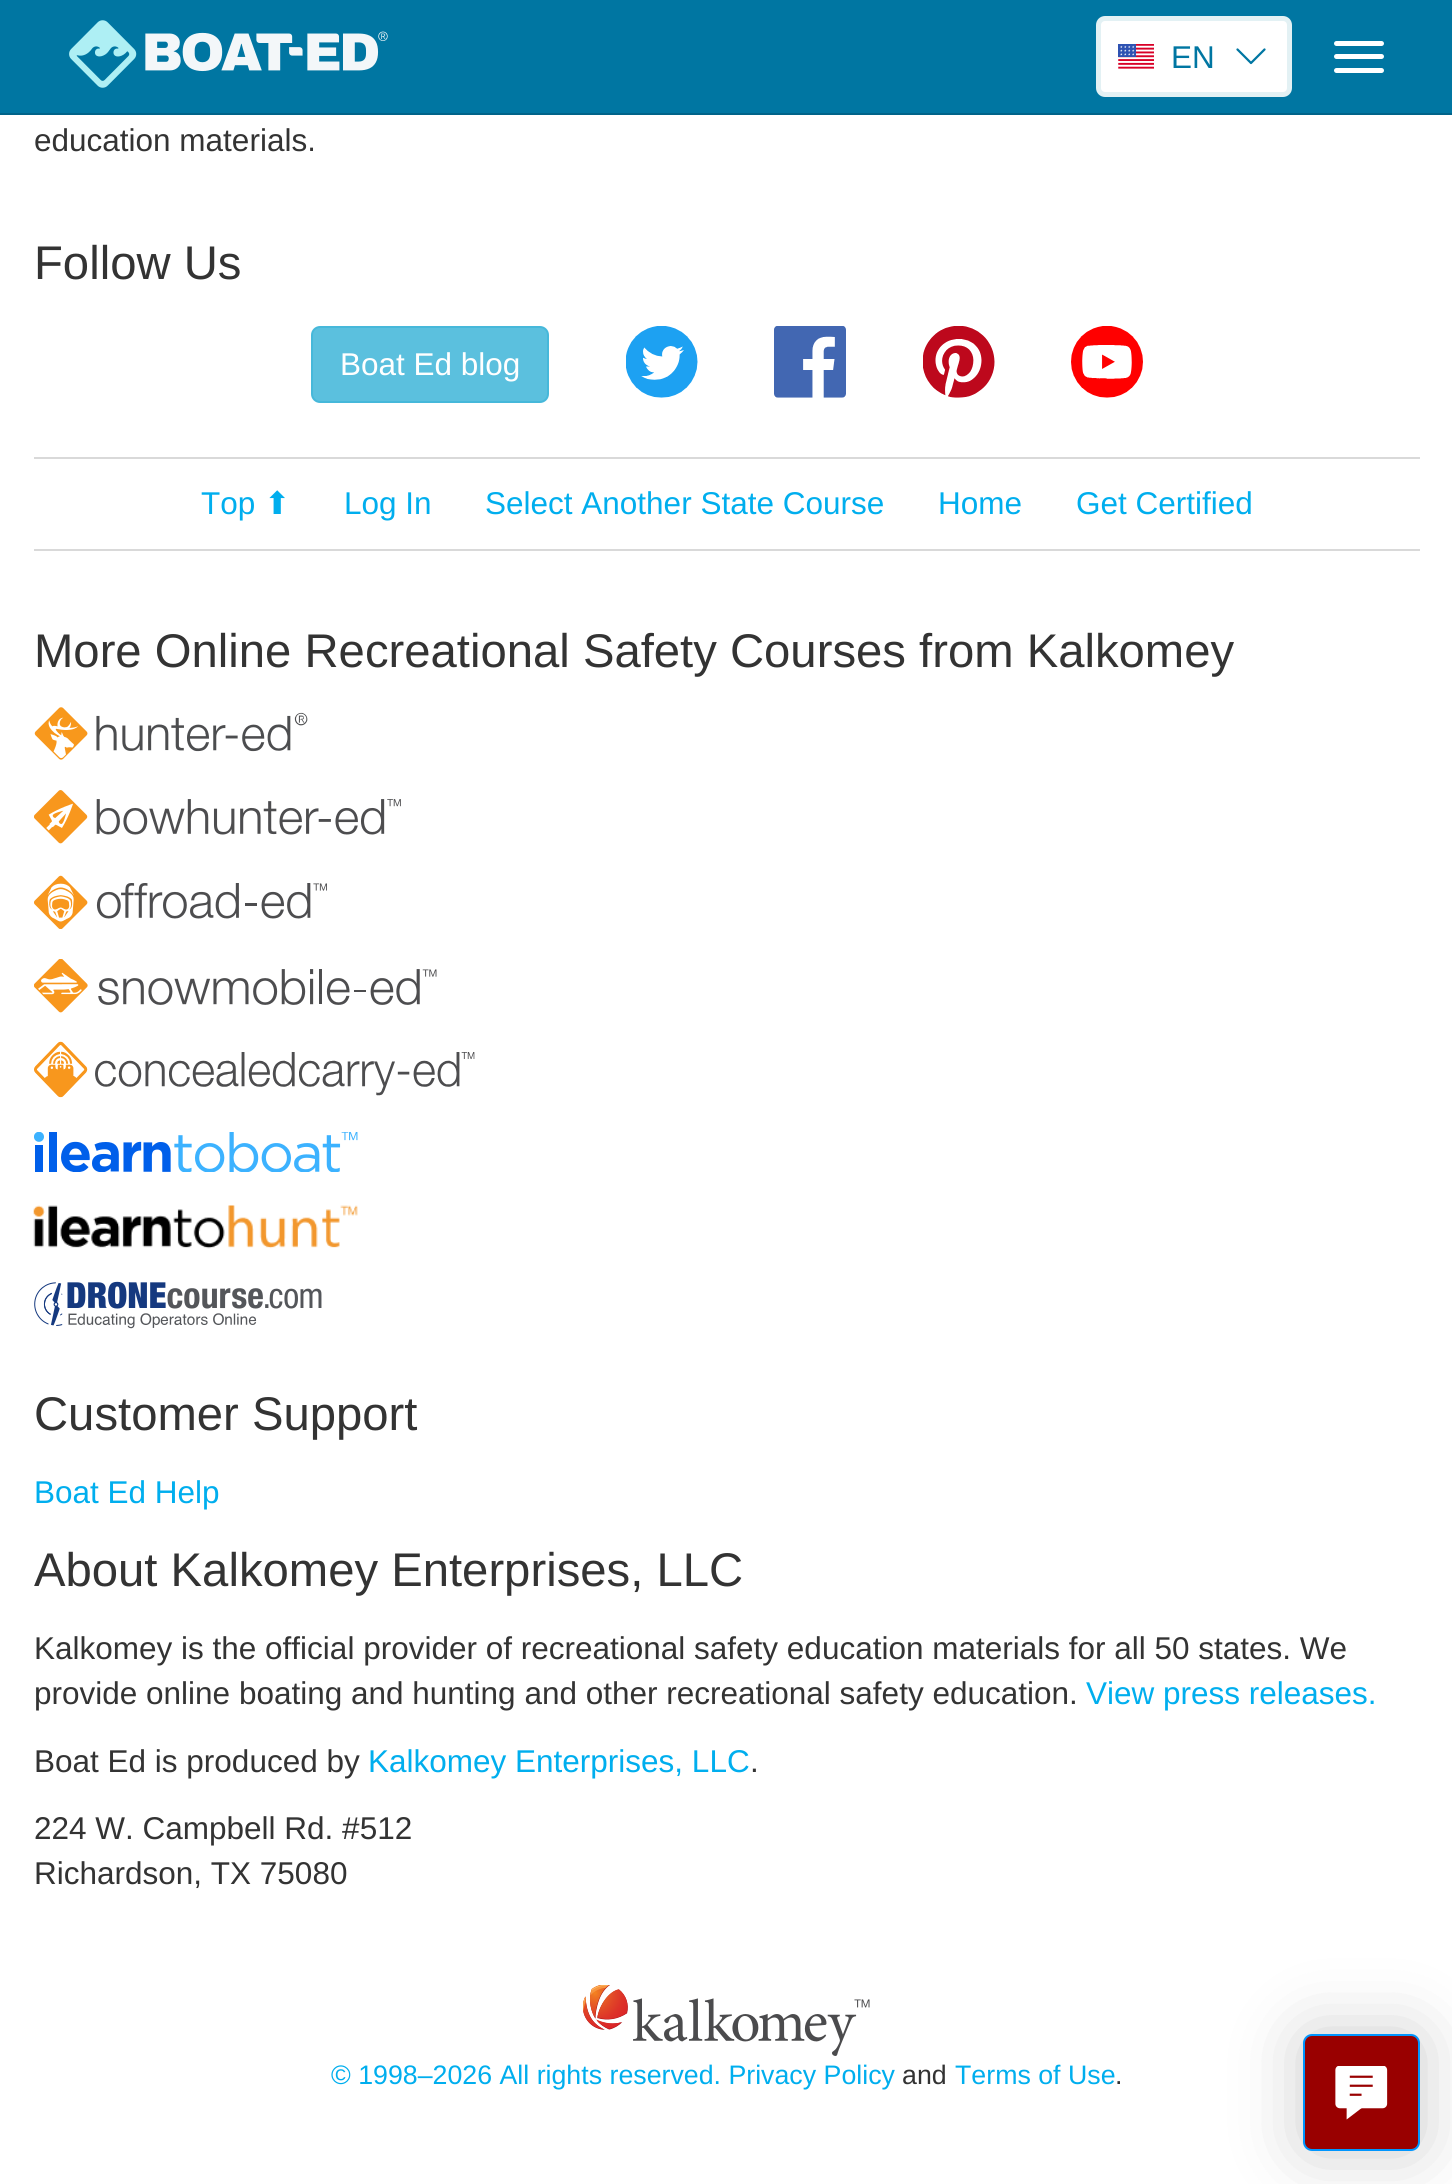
#include <cairo.h>
#include <math.h>
#include <stddef.h>

typedef struct { const char *family; double size; int italic, bold; unsigned color; } style_t;
static cairo_t *ctx;

static void ink(unsigned color) {
    cairo_set_source_rgb(ctx, (color >> 16) / 255.0, (color >> 8 & 255) / 255.0, (color & 255) / 255.0);
}

static void write(double x, double y, const char *s, const style_t *st) {
    cairo_select_font_face(ctx, st->family, st->italic ? CAIRO_FONT_SLANT_ITALIC : CAIRO_FONT_SLANT_NORMAL,
        st->bold ? CAIRO_FONT_WEIGHT_BOLD : CAIRO_FONT_WEIGHT_NORMAL);
    cairo_set_font_size(ctx, st->size);
    ink(st->color);
    cairo_move_to(ctx, x, y);
    cairo_show_text(ctx, s);
}

static void block(double x, double y, double w, double h, unsigned color) {
    ink(color);
    cairo_rectangle(ctx, x, y, w, h);
    cairo_fill(ctx);
}

static void round_path(double x, double y, double w, double h, double r) {
    cairo_new_sub_path(ctx);
    cairo_arc(ctx, x + w - r, y + h - r, r, 0, M_PI / 2);
    cairo_arc(ctx, x + r, y + h - r, r, M_PI / 2, M_PI);
    cairo_arc(ctx, x + r, y + r, r, M_PI, 1.5 * M_PI);
    cairo_arc(ctx, x + w - r, y + r, r, 1.5 * M_PI, 2 * M_PI);
    cairo_close_path(ctx);
}

static void blur_box(double x, double y, double w, double h, double r, double blur, double alpha) {
    cairo_push_group_with_content(ctx, CAIRO_CONTENT_ALPHA);
    cairo_set_operator(ctx, CAIRO_OPERATOR_SOURCE);
    for (int i = 15; i >= -15 && fmin(w, h) + blur * i / 3 > 0; i -= 2) {
        double e = blur * i / 6;
        cairo_set_source_rgba(ctx, 0, 0, 0, alpha * erfc((i - 1) / 8.5) / 2);
        round_path(x - e, y - e, w + 2 * e, h + 2 * e, fmax(0, fmin(r + e + blur * .6, fmin(w, h) / 2 + e)));
        cairo_fill(ctx);
    }
    cairo_pattern_t *soft = cairo_pop_group(ctx);
    cairo_mask(ctx, soft);
    cairo_pattern_destroy(soft);
}

static void paste(const char *path, double x, double y, double w, double h) {
    cairo_surface_t *image = cairo_image_surface_create_from_png(path);
    cairo_save(ctx);
    cairo_set_source_surface(ctx, image, x, y);
    cairo_rectangle(ctx, x, y, w, h);
    cairo_fill(ctx);
    cairo_restore(ctx);
    cairo_surface_destroy(image);
}

static const style_t s1 = {"Liberation Sans", 31.5, 0, 0, 0x0076a2};
static const style_t s2 = {"Liberation Sans", 31.5, 0, 0, 0x333333};
static const style_t s3 = {"Liberation Sans", 47.25, 0, 0, 0x333333};
static const style_t s4 = {"Liberation Sans", 31.5, 0, 0, 0xffffff};
static const style_t s5 = {"Liberation Sans", 31.5, 0, 0, 0x00aeee};
static const style_t s6 = {"DejaVu Sans", 31.5, 0, 0, 0x00aeee};
static const style_t s7 = {"Liberation Sans", 26.75, 0, 0, 0x00aeee};
static const style_t s8 = {"Liberation Sans", 26.75, 0, 0, 0x333333};

int main(void) {
    cairo_surface_t *surface = cairo_image_surface_create(CAIRO_FORMAT_RGB24, 1452, 2184);
    ctx = cairo_create(surface);
    cairo_font_options_t *options = cairo_font_options_create();
    cairo_font_options_set_hint_metrics(options, CAIRO_HINT_METRICS_OFF);
    cairo_font_options_set_hint_style(options, CAIRO_HINT_STYLE_NONE);
    cairo_set_font_options(ctx, options);
    cairo_set_miter_limit(ctx, 4);
    ink(0xffffff);
    cairo_paint(ctx);
    block(0, 0, 1452, 113, 0x0076a2);
    block(0, 113, 1452, 2, 0x006389);
    paste("pic1.png", 69, 20, 319, 68);
    ink(0xffffff);
    round_path(1098.5, 18.5, 191, 76, 6.5);
    cairo_fill_preserve(ctx);
    ink(0xe3f1f4);
    cairo_set_line_width(ctx, 5);
    cairo_stroke(ctx);
    paste("pic2.png", 1118, 44, 36, 25);
    write(1171, 68, "EN", &s1);
    paste("pic3.png", 1236, 48, 30, 17);
    ink(0xffffff);
    round_path(1334, 41, 50, 5, 2.5);
    cairo_fill(ctx);
    round_path(1334, 54, 50, 5, 2.5);
    cairo_fill(ctx);
    round_path(1334, 68, 50, 5, 2.5);
    cairo_fill(ctx);
    write(34, 151, "education materials.", &s2);
    write(34, 279, "Follow Us", &s3);
    ink(0x5bc0de);
    round_path(312, 327, 236, 75, 8);
    cairo_fill_preserve(ctx);
    ink(0x46b8da);
    cairo_set_line_width(ctx, 2);
    cairo_stroke(ctx);
    write(340, 375, "Boat Ed blog", &s4);
    paste("pic4.png", 626, 326, 72, 72);
    paste("pic5.png", 774, 326, 72, 72);
    paste("pic6.png", 923, 326, 72, 72);
    paste("pic7.png", 1071, 326, 72, 72);
    block(34, 457, 1386, 2, 0xd9d9d9);
    block(34, 549, 1386, 2, 0xd9d9d9);
    write(201, 514, "Top", &s5);
    write(264, 514, "⬆", &s6);
    write(344, 514, "Log In", &s5);
    write(485, 514, "Select Another State Course", &s5);
    write(938, 514, "Home", &s5);
    write(1076, 514, "Get Certified", &s5);
    write(34, 667, "More Online Recreational Safety Courses from Kalkomey", &s3);
    paste("pic8.png", 34, 707, 274, 53);
    paste("pic9.png", 34, 790, 367, 54);
    paste("pic10.png", 34, 875, 293, 54);
    paste("pic11.png", 34, 959, 403, 54);
    paste("pic12.png", 34, 1041, 441, 57);
    paste("pic13.png", 34, 1132, 324, 40);
    paste("pic14.png", 33, 1205, 325, 44);
    paste("pic15.png", 34, 1281, 288, 48);
    write(34, 1430, "Customer Support", &s3);
    write(34, 1503, "Boat Ed Help", &s5);
    write(34, 1586, "About Kalkomey Enterprises, LLC", &s3);
    write(34, 1659, "Kalkomey is the official provider of recreational safety education materials for all 50 states. We", &s2);
    write(34, 1704, "provide online boating and hunting and other recreational safety education.", &s2);
    write(1086, 1704, "View press releases.", &s5);
    write(34, 1772, "Boat Ed is produced by", &s2);
    write(368, 1772, "Kalkomey Enterprises, LLC", &s5);
    write(750, 1772, ".", &s2);
    write(34, 1839, "224 W. Campbell Rd. #512", &s2);
    write(34, 1884, "Richardson, TX 75080", &s2);
    paste("pic16.png", 583, 1985, 287, 71);
    write(331, 2084, "© 1998–2026 All rights reserved. Privacy Policy", &s7);
    write(902, 2084, "and", &s8);
    write(955, 2084, "Terms of Use", &s7);
    write(1115, 2084, ".", &s8);
    ink(0x000000);
    blur_box(1301, 2032, 121, 121, 11, 34, 0.2);
    ink(0x990000);
    round_path(1304, 2035, 115, 115, 8);
    cairo_fill_preserve(ctx);
    ink(0x0096ff);
    cairo_stroke(ctx);
    paste("pic17.png", 1335, 2066, 53, 54);
    cairo_surface_write_to_png(surface, "screenshot.png");
    cairo_font_options_destroy(options);
    cairo_destroy(ctx);
    cairo_surface_destroy(surface);
    return 0;
}
